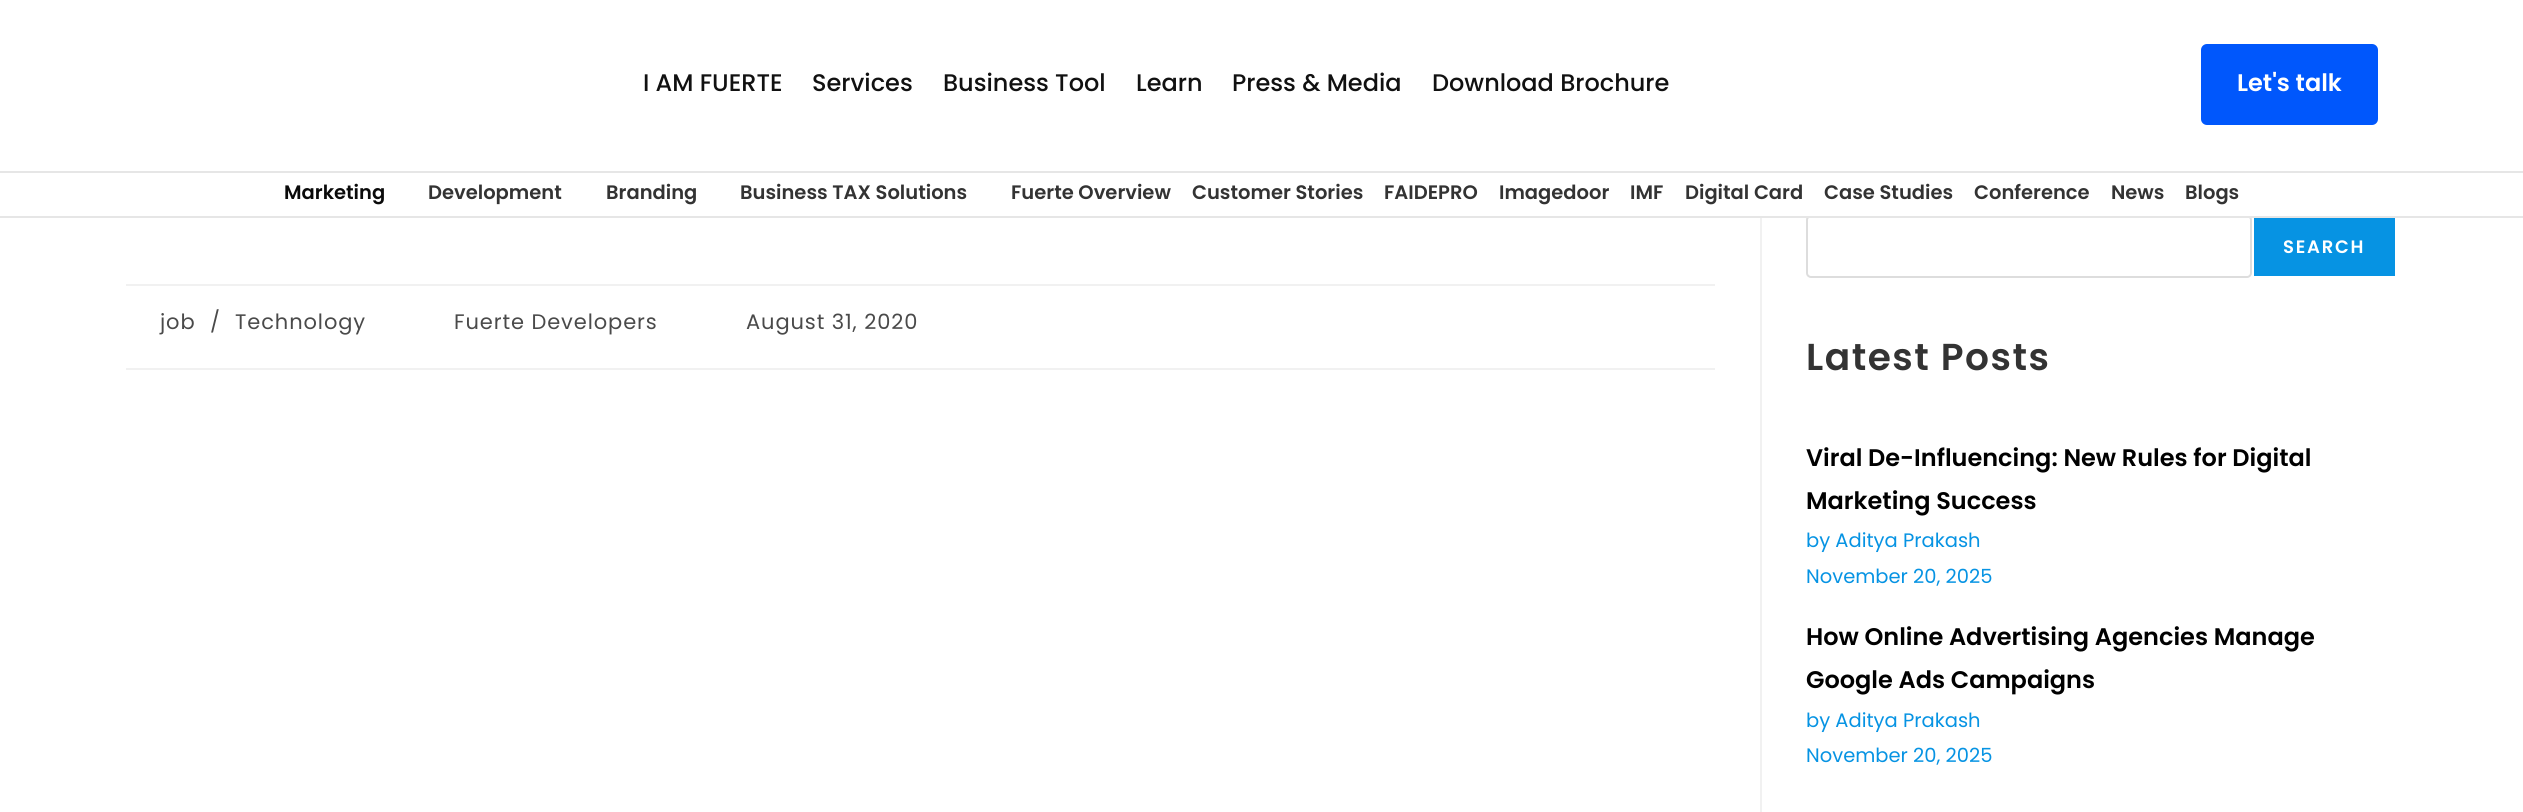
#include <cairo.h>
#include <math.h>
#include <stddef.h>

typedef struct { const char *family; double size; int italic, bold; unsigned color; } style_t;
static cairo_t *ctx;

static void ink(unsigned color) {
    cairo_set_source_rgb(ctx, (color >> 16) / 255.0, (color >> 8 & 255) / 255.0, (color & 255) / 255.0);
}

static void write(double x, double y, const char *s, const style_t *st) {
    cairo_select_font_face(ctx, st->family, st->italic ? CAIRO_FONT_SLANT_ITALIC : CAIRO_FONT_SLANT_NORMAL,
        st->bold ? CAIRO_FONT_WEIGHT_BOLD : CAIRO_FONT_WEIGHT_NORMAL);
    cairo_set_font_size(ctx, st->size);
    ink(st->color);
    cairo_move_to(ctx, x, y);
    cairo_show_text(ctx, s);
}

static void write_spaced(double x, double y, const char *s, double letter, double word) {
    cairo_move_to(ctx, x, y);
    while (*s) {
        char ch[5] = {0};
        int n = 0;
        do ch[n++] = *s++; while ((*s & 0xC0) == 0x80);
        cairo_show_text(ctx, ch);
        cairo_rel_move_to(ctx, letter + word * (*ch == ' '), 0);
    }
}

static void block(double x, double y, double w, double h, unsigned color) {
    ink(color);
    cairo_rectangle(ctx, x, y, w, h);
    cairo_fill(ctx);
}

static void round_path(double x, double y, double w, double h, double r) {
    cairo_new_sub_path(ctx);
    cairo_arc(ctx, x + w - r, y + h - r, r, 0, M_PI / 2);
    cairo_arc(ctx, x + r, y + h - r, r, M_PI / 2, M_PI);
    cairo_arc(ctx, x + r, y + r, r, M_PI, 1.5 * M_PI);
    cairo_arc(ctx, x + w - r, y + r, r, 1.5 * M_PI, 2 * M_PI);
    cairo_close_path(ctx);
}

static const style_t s1 = {"Poppins Medium", 24, 0, 0, 0x111111};
static const style_t s2 = {"Poppins SemiBold", 24, 0, 0, 0xffffff};
static const style_t s3 = {"Poppins SemiBold", 19.5, 0, 0, 0x0a0a0a};
static const style_t s4 = {"Poppins SemiBold", 19.5, 0, 0, 0x333333};
static const style_t s5 = {"Poppins SemiBold", 24, 0, 0, 0x000000};
static const style_t s6 = {"Poppins", 19.5, 0, 0, 0x0693e3};

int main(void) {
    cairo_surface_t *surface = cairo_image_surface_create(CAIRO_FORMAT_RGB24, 2523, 812);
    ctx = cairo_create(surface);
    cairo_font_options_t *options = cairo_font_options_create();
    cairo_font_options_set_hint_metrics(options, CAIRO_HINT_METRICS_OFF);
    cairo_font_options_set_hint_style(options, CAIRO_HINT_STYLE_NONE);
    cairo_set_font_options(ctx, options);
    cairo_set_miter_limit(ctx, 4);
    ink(0xffffff);
    cairo_paint(ctx);
    write(643, 91, "I AM FUERTE", &s1);
    write(812, 91, "Services", &s1);
    write(943, 91, "Business Tool", &s1);
    write(1136, 91, "Learn", &s1);
    write(1232, 91, "Press & Media", &s1);
    write(1432, 91, "Download Brochure", &s1);
    ink(0x0057fc);
    round_path(2201, 44, 177, 81, 6);
    cairo_fill(ctx);
    write(2237, 91, "Let's talk", &s2);
    block(0, 171, 2523, 2, 0xe6e6e6);
    round_path(1807, 216, 444, 61, 4);
    ink(0xdddddd);
    cairo_stroke(ctx);
    block(1808, 215, 442, 1, 0xffffff);
    block(0, 216, 2523, 2, 0xe6e6e6);
    write(284, 199, "Marketing", &s3);
    write(428, 199, "Development", &s4);
    write(606, 199, "Branding", &s4);
    write(740, 199, "Business TAX Solutions", &s4);
    write(1011, 199, "Fuerte Overview", &s4);
    write(1192, 199, "Customer Stories", &s4);
    write(1384, 199, "FAIDEPRO", &s4);
    write(1499, 199, "Imagedoor", &s4);
    write(1630, 199, "IMF", &s4);
    write(1685, 199, "Digital Card", &s4);
    write(1824, 199, "Case Studies", &s4);
    write(1974, 199, "Conference", &s4);
    write(2111, 199, "News", &s4);
    write(2185, 199, "Blogs", &s4);
    block(1760, 218, 2, 594, 0xf1f1f1);
    block(126, 284, 1589, 2, 0xf1f1f1);
    block(126, 368, 1589, 2, 0xf1f1f1);
    cairo_select_font_face(ctx, "Poppins", CAIRO_FONT_SLANT_NORMAL, CAIRO_FONT_WEIGHT_NORMAL);
    cairo_set_font_size(ctx, 21);
    ink(0x4a4a4a);
    write_spaced(160, 329, "job", 0.9, 0);
    write_spaced(210, 329, "/", 0.9, 0);
    write_spaced(235, 329, "Technology", 0.9, 0);
    write_spaced(454, 329, "Fuerte Developers", 0.9, 0);
    write_spaced(746, 329, "August 31, 2020", 0.9, 0);
    block(2254, 218, 141, 58, 0x0693e3);
    cairo_select_font_face(ctx, "Poppins SemiBold", CAIRO_FONT_SLANT_NORMAL, CAIRO_FONT_WEIGHT_NORMAL);
    cairo_set_font_size(ctx, 18);
    ink(0xffffff);
    write_spaced(2283, 253, "SEARCH", 1.75, 0);
    cairo_set_font_size(ctx, 37.5);
    ink(0x333333);
    write_spaced(1806, 370, "Latest Posts", 1.5, 0);
    write(1806, 466, "Viral De-Influencing: New Rules for Digital", &s5);
    write(1806, 509, "Marketing Success", &s5);
    write(1806, 547, "by Aditya Prakash", &s6);
    write(1806, 583, "November 20, 2025", &s6);
    write(1806, 645, "How Online Advertising Agencies Manage", &s5);
    write(1806, 688, "Google Ads Campaigns", &s5);
    write(1806, 727, "by Aditya Prakash", &s6);
    write(1806, 762, "November 20, 2025", &s6);
    cairo_surface_write_to_png(surface, "screenshot.png");
    cairo_font_options_destroy(options);
    cairo_destroy(ctx);
    cairo_surface_destroy(surface);
    return 0;
}
